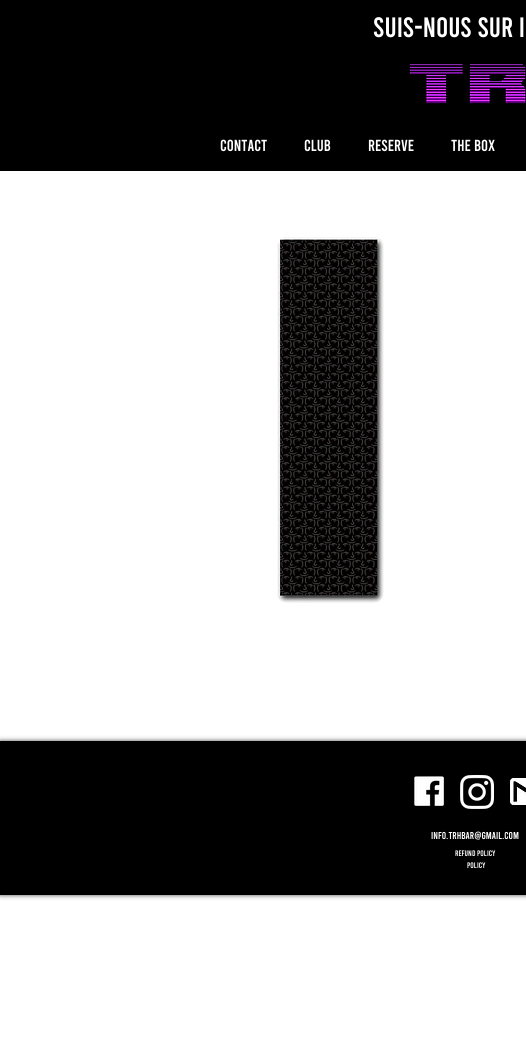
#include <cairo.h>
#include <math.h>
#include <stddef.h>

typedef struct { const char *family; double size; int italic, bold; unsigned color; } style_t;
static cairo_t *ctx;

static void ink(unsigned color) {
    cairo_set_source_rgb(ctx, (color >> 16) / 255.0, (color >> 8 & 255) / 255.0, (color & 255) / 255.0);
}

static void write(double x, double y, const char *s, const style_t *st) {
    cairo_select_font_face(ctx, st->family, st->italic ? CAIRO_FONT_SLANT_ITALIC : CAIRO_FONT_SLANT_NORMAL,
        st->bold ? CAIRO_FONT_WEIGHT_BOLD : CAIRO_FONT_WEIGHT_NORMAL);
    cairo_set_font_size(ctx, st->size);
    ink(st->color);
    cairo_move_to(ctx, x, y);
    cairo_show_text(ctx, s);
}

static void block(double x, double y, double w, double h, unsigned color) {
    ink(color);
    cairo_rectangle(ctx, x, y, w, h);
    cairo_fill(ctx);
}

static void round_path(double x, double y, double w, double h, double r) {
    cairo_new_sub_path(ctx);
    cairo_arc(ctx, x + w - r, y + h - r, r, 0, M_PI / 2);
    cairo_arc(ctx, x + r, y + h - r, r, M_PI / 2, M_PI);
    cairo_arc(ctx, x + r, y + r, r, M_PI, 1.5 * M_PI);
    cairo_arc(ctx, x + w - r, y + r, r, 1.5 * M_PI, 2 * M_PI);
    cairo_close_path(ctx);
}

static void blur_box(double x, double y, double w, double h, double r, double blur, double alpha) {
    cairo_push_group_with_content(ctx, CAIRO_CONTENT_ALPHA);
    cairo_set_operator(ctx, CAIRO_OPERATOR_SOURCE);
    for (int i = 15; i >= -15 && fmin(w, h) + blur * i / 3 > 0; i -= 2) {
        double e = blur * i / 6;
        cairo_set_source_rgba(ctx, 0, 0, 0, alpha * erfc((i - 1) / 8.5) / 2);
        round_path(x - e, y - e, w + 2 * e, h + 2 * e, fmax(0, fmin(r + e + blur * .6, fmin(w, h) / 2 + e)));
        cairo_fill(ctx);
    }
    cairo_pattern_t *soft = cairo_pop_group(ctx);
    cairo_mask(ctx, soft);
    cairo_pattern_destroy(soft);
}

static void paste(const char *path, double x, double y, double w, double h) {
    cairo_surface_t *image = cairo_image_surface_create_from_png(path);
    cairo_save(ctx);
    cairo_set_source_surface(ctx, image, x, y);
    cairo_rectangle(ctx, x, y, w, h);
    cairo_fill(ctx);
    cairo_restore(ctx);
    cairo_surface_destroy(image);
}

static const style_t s1 = {"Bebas", 28, 0, 0, 0xffffff};
static const style_t s2 = {"Bebas", 16, 0, 0, 0xffffff};
static const style_t s3 = {"Bebas", 10, 0, 0, 0xffffff};
static const style_t s4 = {"Bebas", 8, 0, 0, 0xffffff};

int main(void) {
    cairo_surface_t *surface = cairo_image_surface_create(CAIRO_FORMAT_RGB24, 526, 1041);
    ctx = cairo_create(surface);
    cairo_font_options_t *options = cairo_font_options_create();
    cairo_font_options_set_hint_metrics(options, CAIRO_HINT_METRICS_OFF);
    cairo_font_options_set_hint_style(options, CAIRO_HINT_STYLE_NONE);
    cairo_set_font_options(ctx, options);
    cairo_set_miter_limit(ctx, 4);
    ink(0xffffff);
    cairo_paint(ctx);
    block(0, 0, 526, 171, 0x000000);
    write(373, 37, "SUIs-NOUS SUR I", &s1);
    paste("pic1.png", 409, 64, 117, 40);
    write(220, 151, "Contact", &s2);
    write(304, 151, "CLUB", &s2);
    write(368, 151, "RESERVE", &s2);
    write(451, 151, "The BOX", &s2);
    paste("pic2.png", 277, 237, 107, 366);
    ink(0x000000);
    blur_box(0, 741, 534, 154, 0, 2.5, 0.7);
    block(0, 741, 526, 154, 0x000000);
    paste("pic3.png", 414, 776, 31, 30);
    paste("pic4.png", 460, 775, 34, 34);
    paste("pic5.png", 508, 778, 18, 27);
    write(431, 839, "info.trhbar@gmail.com", &s3);
    write(455, 856, "refund policy", &s4);
    write(467, 868, "POLICY", &s4);
    cairo_surface_write_to_png(surface, "screenshot.png");
    cairo_font_options_destroy(options);
    cairo_destroy(ctx);
    cairo_surface_destroy(surface);
    return 0;
}
